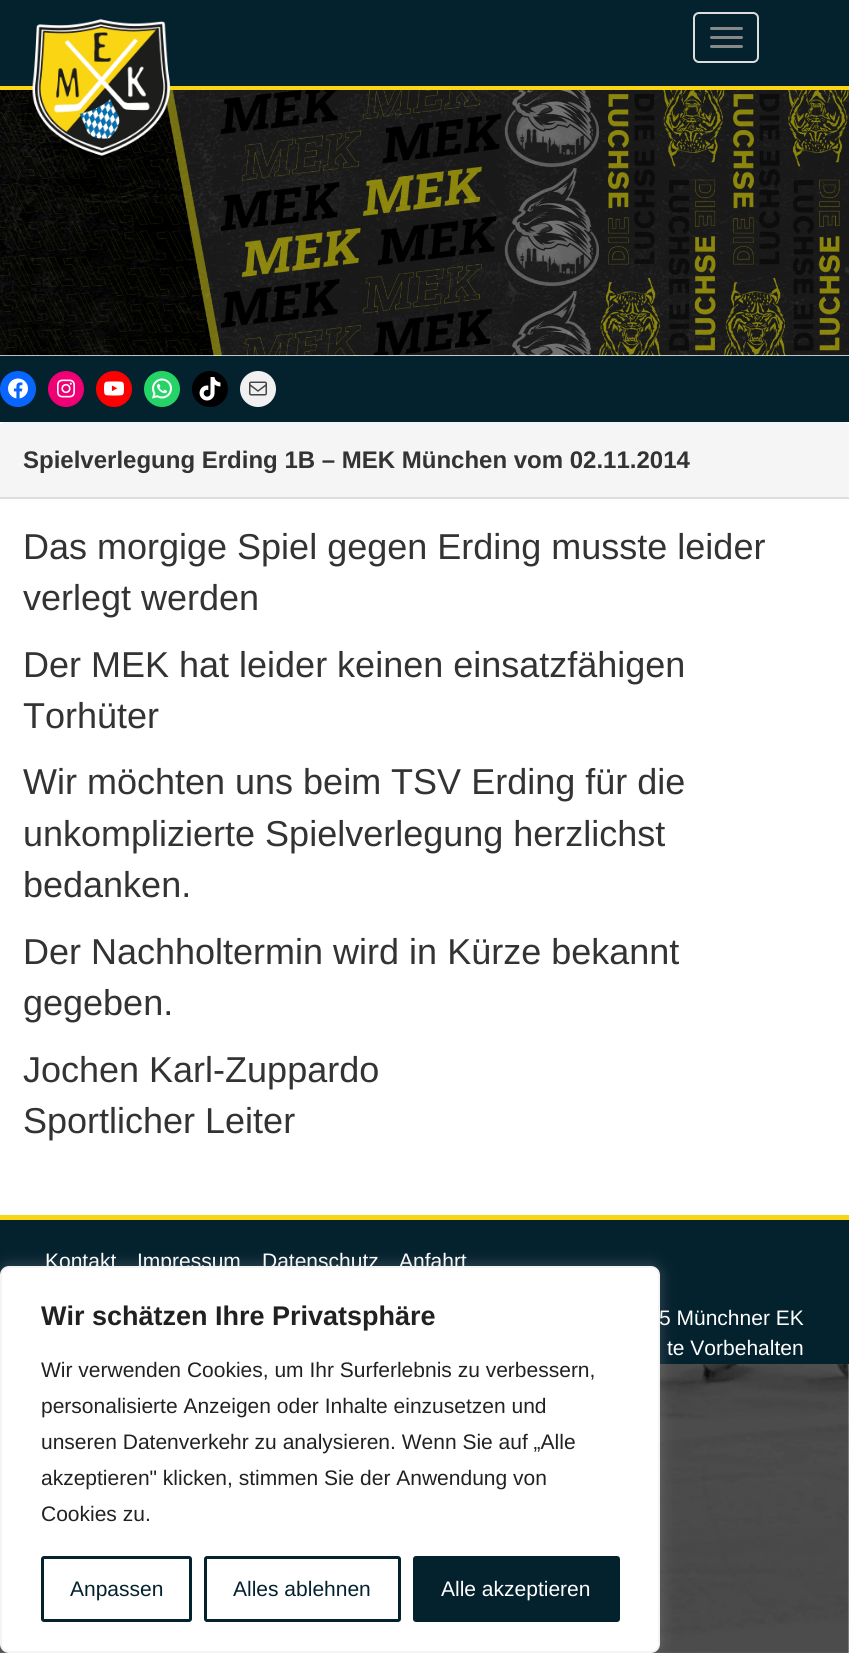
#include <cairo.h>
#include <math.h>
#include <stddef.h>

typedef struct { const char *family; double size; int italic, bold; unsigned color; } style_t;
static cairo_t *ctx;

static void ink(unsigned color) {
    cairo_set_source_rgb(ctx, (color >> 16) / 255.0, (color >> 8 & 255) / 255.0, (color & 255) / 255.0);
}

static void write(double x, double y, const char *s, const style_t *st) {
    cairo_select_font_face(ctx, st->family, st->italic ? CAIRO_FONT_SLANT_ITALIC : CAIRO_FONT_SLANT_NORMAL,
        st->bold ? CAIRO_FONT_WEIGHT_BOLD : CAIRO_FONT_WEIGHT_NORMAL);
    cairo_set_font_size(ctx, st->size);
    ink(st->color);
    cairo_move_to(ctx, x, y);
    cairo_show_text(ctx, s);
}

static void block(double x, double y, double w, double h, unsigned color) {
    ink(color);
    cairo_rectangle(ctx, x, y, w, h);
    cairo_fill(ctx);
}

static void round_path(double x, double y, double w, double h, double r) {
    cairo_new_sub_path(ctx);
    cairo_arc(ctx, x + w - r, y + h - r, r, 0, M_PI / 2);
    cairo_arc(ctx, x + r, y + h - r, r, M_PI / 2, M_PI);
    cairo_arc(ctx, x + r, y + r, r, M_PI, 1.5 * M_PI);
    cairo_arc(ctx, x + w - r, y + r, r, 1.5 * M_PI, 2 * M_PI);
    cairo_close_path(ctx);
}

static void blur_box(double x, double y, double w, double h, double r, double blur, double alpha) {
    cairo_push_group_with_content(ctx, CAIRO_CONTENT_ALPHA);
    cairo_set_operator(ctx, CAIRO_OPERATOR_SOURCE);
    for (int i = 15; i >= -15 && fmin(w, h) + blur * i / 3 > 0; i -= 2) {
        double e = blur * i / 6;
        cairo_set_source_rgba(ctx, 0, 0, 0, alpha * erfc((i - 1) / 8.5) / 2);
        round_path(x - e, y - e, w + 2 * e, h + 2 * e, fmax(0, fmin(r + e + blur * .6, fmin(w, h) / 2 + e)));
        cairo_fill(ctx);
    }
    cairo_pattern_t *soft = cairo_pop_group(ctx);
    cairo_mask(ctx, soft);
    cairo_pattern_destroy(soft);
}

static void paste(const char *path, double x, double y, double w, double h) {
    cairo_surface_t *image = cairo_image_surface_create_from_png(path);
    cairo_save(ctx);
    cairo_set_source_surface(ctx, image, x, y);
    cairo_rectangle(ctx, x, y, w, h);
    cairo_fill(ctx);
    cairo_restore(ctx);
    cairo_surface_destroy(image);
}

static const style_t s1 = {"Liberation Sans", 24, 0, 1, 0x333333};
static const style_t s2 = {"Liberation Sans", 36, 0, 0, 0x333333};
static const style_t s3 = {"Liberation Sans", 21, 0, 0, 0xffffff};
static const style_t s4 = {"Liberation Sans", 27, 0, 1, 0x212121};
static const style_t s5 = {"Liberation Sans", 21, 0, 0, 0x212121};
static const style_t s6 = {"Liberation Sans", 21, 0, 0, 0x04212e};

int main(void) {
    cairo_surface_t *surface = cairo_image_surface_create(CAIRO_FORMAT_RGB24, 849, 1653);
    ctx = cairo_create(surface);
    cairo_font_options_t *options = cairo_font_options_create();
    cairo_font_options_set_hint_metrics(options, CAIRO_HINT_METRICS_OFF);
    cairo_font_options_set_hint_style(options, CAIRO_HINT_STYLE_NONE);
    cairo_set_font_options(ctx, options);
    cairo_set_miter_limit(ctx, 4);
    ink(0xffffff);
    cairo_paint(ctx);
    paste("pic1.png", 0, 1364, 849, 289);
    block(0, 0, 849, 86, 0x04212e);
    block(0, 86, 849, 4, 0xfad514);
    round_path(694, 13, 64, 49, 5);
    ink(0xdddddd);
    cairo_stroke(ctx);
    ink(0x888888);
    round_path(710, 27, 33, 3, 1.5);
    cairo_fill(ctx);
    round_path(710, 36, 33, 3, 1.5);
    cairo_fill(ctx);
    round_path(710, 45, 33, 3, 1.5);
    cairo_fill(ctx);
    paste("pic3.png", 0, 90, 849, 266);
    paste("pic2.png", 32, 19, 139, 137);
    block(0, 356, 849, 66, 0x04212e);
    ink(0x0866ff);
    cairo_arc(ctx, 18, 389, 18, 0, 2 * M_PI);
    cairo_fill(ctx);
    paste("pic4.png", 8, 378, 20, 21);
    ink(0xf00075);
    cairo_arc(ctx, 66, 389, 18, 0, 2 * M_PI);
    cairo_fill(ctx);
    paste("pic5.png", 57, 379, 18, 19);
    ink(0xff0000);
    cairo_arc(ctx, 114, 389, 18, 0, 2 * M_PI);
    cairo_fill(ctx);
    paste("pic6.png", 104, 381, 20, 15);
    ink(0x25d366);
    cairo_arc(ctx, 162, 389, 18, 0, 2 * M_PI);
    cairo_fill(ctx);
    paste("pic7.png", 152, 378, 20, 21);
    ink(0x000000);
    cairo_arc(ctx, 210, 389, 18, 0, 2 * M_PI);
    cairo_fill(ctx);
    paste("pic8.png", 199, 377, 22, 24);
    ink(0xf0f0f0);
    cairo_arc(ctx, 258, 389, 18, 0, 2 * M_PI);
    cairo_fill(ctx);
    paste("pic9.png", 249, 381, 18, 15);
    ink(0xf5f5f5);
    cairo_new_path(ctx);
    cairo_move_to(ctx, 5, 422);
    cairo_line_to(ctx, 844, 422);
    cairo_curve_to(ctx, 847, 422, 849, 424, 849, 427);
    cairo_line_to(ctx, 849, 498);
    cairo_line_to(ctx, 0, 498);
    cairo_line_to(ctx, 0, 427);
    cairo_curve_to(ctx, 0, 424, 2, 422, 5, 422);
    cairo_close_path(ctx);
    cairo_fill(ctx);
    block(0, 497, 849, 2, 0xdddddd);
    write(23, 468, "Spielverlegung Erding 1B – MEK München vom 02.11.2014", &s1);
    write(23, 559, "Das morgige Spiel gegen Erding musste leider", &s2);
    write(23, 610, "verlegt werden", &s2);
    write(23, 677, "Der MEK hat leider keinen einsatzfähigen", &s2);
    write(23, 728, "Torhüter", &s2);
    write(23, 794, "Wir möchten uns beim TSV Erding für die", &s2);
    write(23, 846, "unkomplizierte Spielverlegung herzlichst", &s2);
    write(23, 897, "bedanken.", &s2);
    write(23, 964, "Der Nachholtermin wird in Kürze bekannt", &s2);
    write(23, 1015, "gegeben.", &s2);
    write(23, 1082, "Jochen Karl-Zuppardo", &s2);
    write(23, 1133, "Sportlicher Leiter", &s2);
    block(0, 1220, 849, 144, 0x04212e);
    block(0, 1215, 849, 5, 0xfad514);
    write(45, 1268, "Kontakt", &s3);
    write(137, 1268, "Impressum", &s3);
    write(262, 1268, "Datenschutz", &s3);
    write(399, 1268, "Anfahrt", &s3);
    write(659, 1325, "5 Münchner EK", &s3);
    write(667, 1355, "te Vorbehalten", &s3);
    ink(0xacabab);
    blur_box(0, 1265, 660, 387, 9, 7.5, 0.3);
    ink(0xffffff);
    round_path(1, 1267, 658, 385, 8);
    cairo_fill_preserve(ctx);
    ink(0xf4f4f4);
    cairo_stroke(ctx);
    write(41, 1325, "Wir schätzen Ihre Privatsphäre", &s4);
    write(41, 1377, "Wir verwenden Cookies, um Ihr Surferlebnis zu verbessern,", &s5);
    write(41, 1413, "personalisierte Anzeigen oder Inhalte einzusetzen und", &s5);
    write(41, 1449, "unseren Datenverkehr zu analysieren. Wenn Sie auf „Alle", &s5);
    write(41, 1485, "akzeptieren\" klicken, stimmen Sie der Anwendung von", &s5);
    write(41, 1521, "Cookies zu.", &s5);
    round_path(42.5, 1557.5, 148, 63, 1.5);
    ink(0x04212e);
    cairo_set_line_width(ctx, 3);
    cairo_stroke(ctx);
    write(70, 1596, "Anpassen", &s6);
    round_path(205.5, 1557.5, 194, 63, 1.5);
    cairo_stroke(ctx);
    write(233, 1596, "Alles ablehnen", &s6);
    round_path(414.5, 1557.5, 204, 63, 1.5);
    cairo_fill_preserve(ctx);
    cairo_stroke(ctx);
    write(441, 1596, "Alle akzeptieren", &s3);
    cairo_surface_write_to_png(surface, "screenshot.png");
    cairo_font_options_destroy(options);
    cairo_destroy(ctx);
    cairo_surface_destroy(surface);
    return 0;
}
